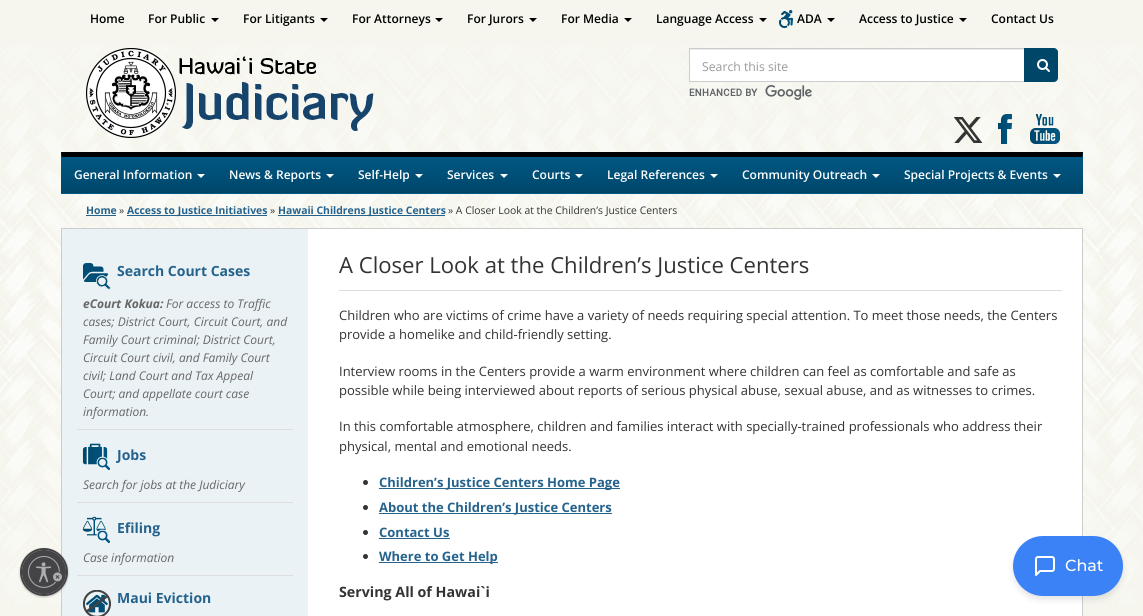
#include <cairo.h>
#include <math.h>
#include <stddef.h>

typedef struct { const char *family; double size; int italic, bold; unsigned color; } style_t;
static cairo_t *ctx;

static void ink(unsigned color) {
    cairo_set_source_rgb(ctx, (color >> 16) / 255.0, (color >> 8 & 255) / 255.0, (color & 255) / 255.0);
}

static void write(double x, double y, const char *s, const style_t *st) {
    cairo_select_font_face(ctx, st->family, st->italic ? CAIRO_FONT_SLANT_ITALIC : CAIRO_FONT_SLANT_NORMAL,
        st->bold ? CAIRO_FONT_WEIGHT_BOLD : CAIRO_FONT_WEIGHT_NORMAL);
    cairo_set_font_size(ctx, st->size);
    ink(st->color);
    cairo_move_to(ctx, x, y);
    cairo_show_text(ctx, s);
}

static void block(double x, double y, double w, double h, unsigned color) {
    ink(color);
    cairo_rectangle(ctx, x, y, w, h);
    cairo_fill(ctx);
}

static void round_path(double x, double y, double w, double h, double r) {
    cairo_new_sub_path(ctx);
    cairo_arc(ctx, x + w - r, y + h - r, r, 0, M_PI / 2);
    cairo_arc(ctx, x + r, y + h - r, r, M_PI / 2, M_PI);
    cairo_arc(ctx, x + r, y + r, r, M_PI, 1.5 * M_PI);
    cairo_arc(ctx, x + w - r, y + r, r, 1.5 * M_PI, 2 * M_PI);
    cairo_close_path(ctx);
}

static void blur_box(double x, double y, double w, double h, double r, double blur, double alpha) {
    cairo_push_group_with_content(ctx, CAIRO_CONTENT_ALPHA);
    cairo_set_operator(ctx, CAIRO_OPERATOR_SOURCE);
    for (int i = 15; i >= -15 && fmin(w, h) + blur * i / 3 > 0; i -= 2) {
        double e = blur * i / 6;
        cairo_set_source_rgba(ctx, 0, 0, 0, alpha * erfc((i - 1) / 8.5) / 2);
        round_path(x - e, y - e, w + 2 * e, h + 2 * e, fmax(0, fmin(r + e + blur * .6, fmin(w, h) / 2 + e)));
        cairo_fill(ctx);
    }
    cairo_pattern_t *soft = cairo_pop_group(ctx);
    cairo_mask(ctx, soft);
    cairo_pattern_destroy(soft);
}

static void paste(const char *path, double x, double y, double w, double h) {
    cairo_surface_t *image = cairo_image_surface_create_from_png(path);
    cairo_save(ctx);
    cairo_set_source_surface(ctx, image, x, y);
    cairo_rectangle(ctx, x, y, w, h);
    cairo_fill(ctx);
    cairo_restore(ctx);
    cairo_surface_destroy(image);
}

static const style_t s1 = {"Open Sans SemiBold", 12, 0, 0, 0x000000};
static const style_t s2 = {"Open Sans", 12.25, 0, 0, 0x999999};
static const style_t s3 = {"Open Sans SemiBold", 12, 0, 0, 0xffffff};
static const style_t s4 = {"Open Sans", 10.4, 0, 1, 0x25638d};
static const style_t s5 = {"Open Sans", 10.4, 0, 0, 0x333333};
static const style_t s6 = {"Open Sans", 14, 0, 1, 0x25638d};
static const style_t s7 = {"Open Sans", 12, 1, 1, 0x666666};
static const style_t s8 = {"Open Sans", 12, 1, 0, 0x666666};
static const style_t s9 = {"Open Sans", 22.1, 0, 0, 0x333333};
static const style_t s10 = {"Open Sans", 13, 0, 0, 0x333333};
static const style_t s11 = {"Open Sans", 13, 0, 1, 0x25638d};
static const style_t s12 = {"Open Sans", 14.25, 0, 1, 0x333333};
static const style_t s13 = {"Montserrat Medium", 16, 0, 0, 0xffffff};

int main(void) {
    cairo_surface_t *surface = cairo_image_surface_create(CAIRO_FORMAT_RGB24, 1143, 616);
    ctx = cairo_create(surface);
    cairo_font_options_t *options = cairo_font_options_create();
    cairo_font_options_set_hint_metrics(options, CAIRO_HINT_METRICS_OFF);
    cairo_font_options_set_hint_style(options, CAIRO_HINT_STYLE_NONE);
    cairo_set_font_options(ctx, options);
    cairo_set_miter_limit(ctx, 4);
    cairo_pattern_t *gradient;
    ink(0xf6f6ef);
    cairo_paint(ctx);
    paste("pic1.png", 0, 45, 1143, 560);
    write(90, 23, "Home", &s1);
    write(148, 23, "For Public", &s1);
    cairo_new_path(ctx);
    cairo_move_to(ctx, 211, 18);
    cairo_line_to(ctx, 219, 18);
    cairo_line_to(ctx, 215, 22);
    cairo_close_path(ctx);
    cairo_fill(ctx);
    write(243, 23, "For Litigants", &s1);
    cairo_new_path(ctx);
    cairo_move_to(ctx, 320, 18);
    cairo_line_to(ctx, 328, 18);
    cairo_line_to(ctx, 324, 22);
    cairo_close_path(ctx);
    cairo_fill(ctx);
    write(352, 23, "For Attorneys", &s1);
    cairo_new_path(ctx);
    cairo_move_to(ctx, 435, 18);
    cairo_line_to(ctx, 443, 18);
    cairo_line_to(ctx, 439, 22);
    cairo_close_path(ctx);
    cairo_fill(ctx);
    write(467, 23, "For Jurors", &s1);
    cairo_new_path(ctx);
    cairo_move_to(ctx, 529, 18);
    cairo_line_to(ctx, 537, 18);
    cairo_line_to(ctx, 533, 22);
    cairo_close_path(ctx);
    cairo_fill(ctx);
    write(561, 23, "For Media", &s1);
    cairo_new_path(ctx);
    cairo_move_to(ctx, 624, 18);
    cairo_line_to(ctx, 632, 18);
    cairo_line_to(ctx, 628, 22);
    cairo_close_path(ctx);
    cairo_fill(ctx);
    write(656, 23, "Language Access", &s1);
    cairo_new_path(ctx);
    cairo_move_to(ctx, 759, 18);
    cairo_line_to(ctx, 767, 18);
    cairo_line_to(ctx, 763, 22);
    cairo_close_path(ctx);
    cairo_fill(ctx);
    paste("pic2.png", 779, 10, 14, 18);
    write(797, 23, "ADA", &s1);
    cairo_new_path(ctx);
    cairo_move_to(ctx, 827, 18);
    cairo_line_to(ctx, 835, 18);
    cairo_line_to(ctx, 831, 22);
    cairo_close_path(ctx);
    cairo_fill(ctx);
    write(859, 23, "Access to Justice", &s1);
    cairo_new_path(ctx);
    cairo_move_to(ctx, 959, 18);
    cairo_line_to(ctx, 967, 18);
    cairo_line_to(ctx, 963, 22);
    cairo_close_path(ctx);
    cairo_fill(ctx);
    write(991, 23, "Contact Us", &s1);
    paste("pic3.png", 86, 48, 288, 90);
    block(690, 50, 334, 31, 0xffffff);
    block(690, 49, 334, 1, 0xececec);
    cairo_rectangle(ctx, 689.5, 48.5, 335, 33);
    ink(0xcccccc);
    cairo_set_line_width(ctx, 1);
    cairo_stroke(ctx);
    write(702, 71, "Search this site", &s2);
    ink(0x004669);
    cairo_new_path(ctx);
    cairo_move_to(ctx, 1024, 48);
    cairo_line_to(ctx, 1054, 48);
    cairo_curve_to(ctx, 1056, 48, 1058, 50, 1058, 52);
    cairo_line_to(ctx, 1058, 78);
    cairo_curve_to(ctx, 1058, 80, 1056, 82, 1054, 82);
    cairo_line_to(ctx, 1024, 82);
    cairo_close_path(ctx);
    cairo_fill(ctx);
    paste("pic4.png", 1037, 59, 13, 13);
    paste("pic5.png", 689, 85, 123, 15);
    paste("pic6.png", 953, 117, 30, 26);
    paste("pic7.png", 998, 114, 14, 30);
    paste("pic8.png", 1030, 114, 30, 30);
    gradient = cairo_pattern_create_linear(572, 121, 572, 157);
    cairo_pattern_add_color_stop_rgba(gradient, 0, 0, 0.345, 0.518, 1);
    cairo_pattern_add_color_stop_rgba(gradient, 1, 0, 0.275, 0.412, 1);
    cairo_set_source(ctx, gradient);
    cairo_pattern_destroy(gradient);
    cairo_rectangle(ctx, 61, 152, 1022, 5);
    cairo_fill(ctx);
    gradient = cairo_pattern_create_linear(572, 157, 572, 193);
    cairo_pattern_add_color_stop_rgba(gradient, 0, 0, 0.345, 0.518, 1);
    cairo_pattern_add_color_stop_rgba(gradient, 1, 0, 0.275, 0.412, 1);
    cairo_set_source(ctx, gradient);
    cairo_pattern_destroy(gradient);
    cairo_rectangle(ctx, 61, 157, 1022, 36);
    cairo_fill(ctx);
    gradient = cairo_pattern_create_linear(572, 193, 572, 229);
    cairo_pattern_add_color_stop_rgba(gradient, 0, 0, 0.345, 0.518, 1);
    cairo_pattern_add_color_stop_rgba(gradient, 1, 0, 0.275, 0.412, 1);
    cairo_set_source(ctx, gradient);
    cairo_pattern_destroy(gradient);
    cairo_rectangle(ctx, 61, 193, 1022, 1);
    cairo_fill(ctx);
    ink(0x000000);
    cairo_new_path(ctx);
    cairo_move_to(ctx, 61, 152);
    cairo_line_to(ctx, 1083, 152);
    cairo_line_to(ctx, 1082, 157);
    cairo_line_to(ctx, 62, 157);
    cairo_close_path(ctx);
    cairo_fill(ctx);
    write(74, 179, "General Information", &s3);
    cairo_new_path(ctx);
    cairo_move_to(ctx, 197, 174);
    cairo_line_to(ctx, 205, 174);
    cairo_line_to(ctx, 201, 178);
    cairo_close_path(ctx);
    cairo_fill(ctx);
    write(229, 179, "News & Reports", &s3);
    cairo_new_path(ctx);
    cairo_move_to(ctx, 326, 174);
    cairo_line_to(ctx, 334, 174);
    cairo_line_to(ctx, 330, 178);
    cairo_close_path(ctx);
    cairo_fill(ctx);
    write(358, 179, "Self-Help", &s3);
    cairo_new_path(ctx);
    cairo_move_to(ctx, 415, 174);
    cairo_line_to(ctx, 423, 174);
    cairo_line_to(ctx, 419, 178);
    cairo_close_path(ctx);
    cairo_fill(ctx);
    write(447, 179, "Services", &s3);
    cairo_new_path(ctx);
    cairo_move_to(ctx, 500, 174);
    cairo_line_to(ctx, 508, 174);
    cairo_line_to(ctx, 504, 178);
    cairo_close_path(ctx);
    cairo_fill(ctx);
    write(532, 179, "Courts", &s3);
    cairo_new_path(ctx);
    cairo_move_to(ctx, 575, 174);
    cairo_line_to(ctx, 583, 174);
    cairo_line_to(ctx, 579, 178);
    cairo_close_path(ctx);
    cairo_fill(ctx);
    write(607, 179, "Legal References", &s3);
    cairo_new_path(ctx);
    cairo_move_to(ctx, 710, 174);
    cairo_line_to(ctx, 718, 174);
    cairo_line_to(ctx, 714, 178);
    cairo_close_path(ctx);
    cairo_fill(ctx);
    write(742, 179, "Community Outreach", &s3);
    cairo_new_path(ctx);
    cairo_move_to(ctx, 872, 174);
    cairo_line_to(ctx, 880, 174);
    cairo_line_to(ctx, 876, 178);
    cairo_close_path(ctx);
    cairo_fill(ctx);
    write(904, 179, "Special Projects & Events", &s3);
    cairo_new_path(ctx);
    cairo_move_to(ctx, 1053, 174);
    cairo_line_to(ctx, 1061, 174);
    cairo_line_to(ctx, 1057, 178);
    cairo_close_path(ctx);
    cairo_fill(ctx);
    block(308, 229, 774, 387, 0xffffff);
    cairo_rectangle(ctx, 61.5, 228.5, 1021, 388);
    ink(0xcccccc);
    cairo_stroke(ctx);
    block(62, 229, 246, 387, 0xebf2f5);
    ink(0x000000);
    blur_box(20, 549, 48, 48, 24, 1, 0.24);
    cairo_arc(ctx, 44, 572, 23, 0, 2 * M_PI);
    ink(0x444446);
    cairo_set_line_width(ctx, 2);
    cairo_stroke(ctx);
    cairo_save(ctx);
    round_path(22, 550, 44, 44, 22);
    cairo_clip(ctx);
    ink(0x000000);
    blur_box(22, 551, 44, 44, 22, 1, 0.24);
    cairo_restore(ctx);
    cairo_arc(ctx, 44, 572, 22, 0, 2 * M_PI);
    cairo_fill(ctx);
    paste("pic9.png", 28, 556, 34, 32);
    write(86, 214, "Home", &s4);
    block(86, 215, 30, 1, 0x25638d);
    write(119, 214, "»", &s5);
    block(127, 215, 140, 1, 0x25638d);
    write(127, 214, "Access to Justice Initiatives", &s4);
    write(270, 214, "»", &s5);
    block(278, 215, 167, 1, 0x25638d);
    write(278, 214, "Hawaii Childrens Justice Centers", &s4);
    write(448, 214, "» A Closer Look at the Children’s Justice Centers", &s5);
    block(77, 429, 216, 1, 0xdddddd);
    paste("pic10.png", 83, 263, 28, 27);
    write(117, 276, "Search Court Cases", &s6);
    write(83, 308, "eCourt Kokua:", &s7);
    write(166, 308, "For access to Traffic", &s8);
    write(83, 326, "cases; District Court, Circuit Court, and", &s8);
    write(83, 344, "Family Court criminal; District Court,", &s8);
    write(83, 362, "Circuit Court civil, and Family Court", &s8);
    write(83, 380, "civil; Land Court and Tax Appeal", &s8);
    write(83, 398, "Court; and appellate court case", &s8);
    write(83, 416, "information.", &s8);
    block(77, 502, 216, 1, 0xdddddd);
    paste("pic11.png", 82, 443, 28, 27);
    write(117, 460, "Jobs", &s6);
    write(83, 489, "Search for jobs at the Judiciary", &s8);
    block(77, 575, 216, 1, 0xdddddd);
    paste("pic12.png", 82, 516, 28, 27);
    write(117, 533, "Efiling", &s6);
    write(83, 562, "Case information", &s8);
    paste("pic13.png", 83, 590, 28, 26);
    write(117, 603, "Maui Eviction", &s6);
    block(339, 290, 723, 1, 0xdddddd);
    write(339, 273, "A Closer Look at the Children’s Justice Centers", &s9);
    write(339, 320, "Children who are victims of crime have a variety of needs requiring special attention. To meet those needs, the Centers", &s10);
    write(339, 339, "provide a homelike and child-friendly setting.", &s10);
    write(339, 376, "Interview rooms in the Centers provide a warm environment where children can feel as comfortable and safe as", &s10);
    write(339, 395, "possible while being interviewed about reports of serious physical abuse, sexual abuse, and as witnesses to crimes.", &s10);
    write(339, 431, "In this comfortable atmosphere, children and families interact with specially-trained professionals who address their", &s10);
    write(339, 451, "physical, mental and emotional needs.", &s10);
    cairo_new_path(ctx);
    cairo_arc(ctx, 365.5, 482.5, 2.5, 0, 2 * M_PI);
    cairo_fill(ctx);
    block(379, 488, 241, 1, 0x25638d);
    write(379, 487, "Children’s Justice Centers Home Page", &s11);
    ink(0x333333);
    cairo_new_path(ctx);
    cairo_arc(ctx, 365.5, 507.5, 2.5, 0, 2 * M_PI);
    cairo_fill(ctx);
    block(379, 513, 233, 1, 0x25638d);
    write(379, 512, "About the Children’s Justice Centers", &s11);
    ink(0x333333);
    cairo_new_path(ctx);
    cairo_arc(ctx, 365.5, 532.5, 2.5, 0, 2 * M_PI);
    cairo_fill(ctx);
    write(379, 537, "Contact Us", &s11);
    block(379, 538, 71, 1, 0x25638d);
    ink(0x333333);
    cairo_new_path(ctx);
    cairo_arc(ctx, 365.5, 556.5, 2.5, 0, 2 * M_PI);
    cairo_fill(ctx);
    block(379, 562, 119, 1, 0x25638d);
    write(379, 561, "Where to Get Help", &s11);
    write(339, 597, "Serving All of Hawai`i", &s12);
    ink(0x000000);
    blur_box(1013, 540, 110, 60, 30, 3, 0.1);
    ink(0x3b82f6);
    round_path(1013, 536, 110, 60, 30);
    cairo_fill(ctx);
    paste("pic14.png", 1035, 556, 20, 20);
    write(1065, 571, "Chat", &s13);
    cairo_surface_write_to_png(surface, "screenshot.png");
    cairo_font_options_destroy(options);
    cairo_destroy(ctx);
    cairo_surface_destroy(surface);
    return 0;
}
